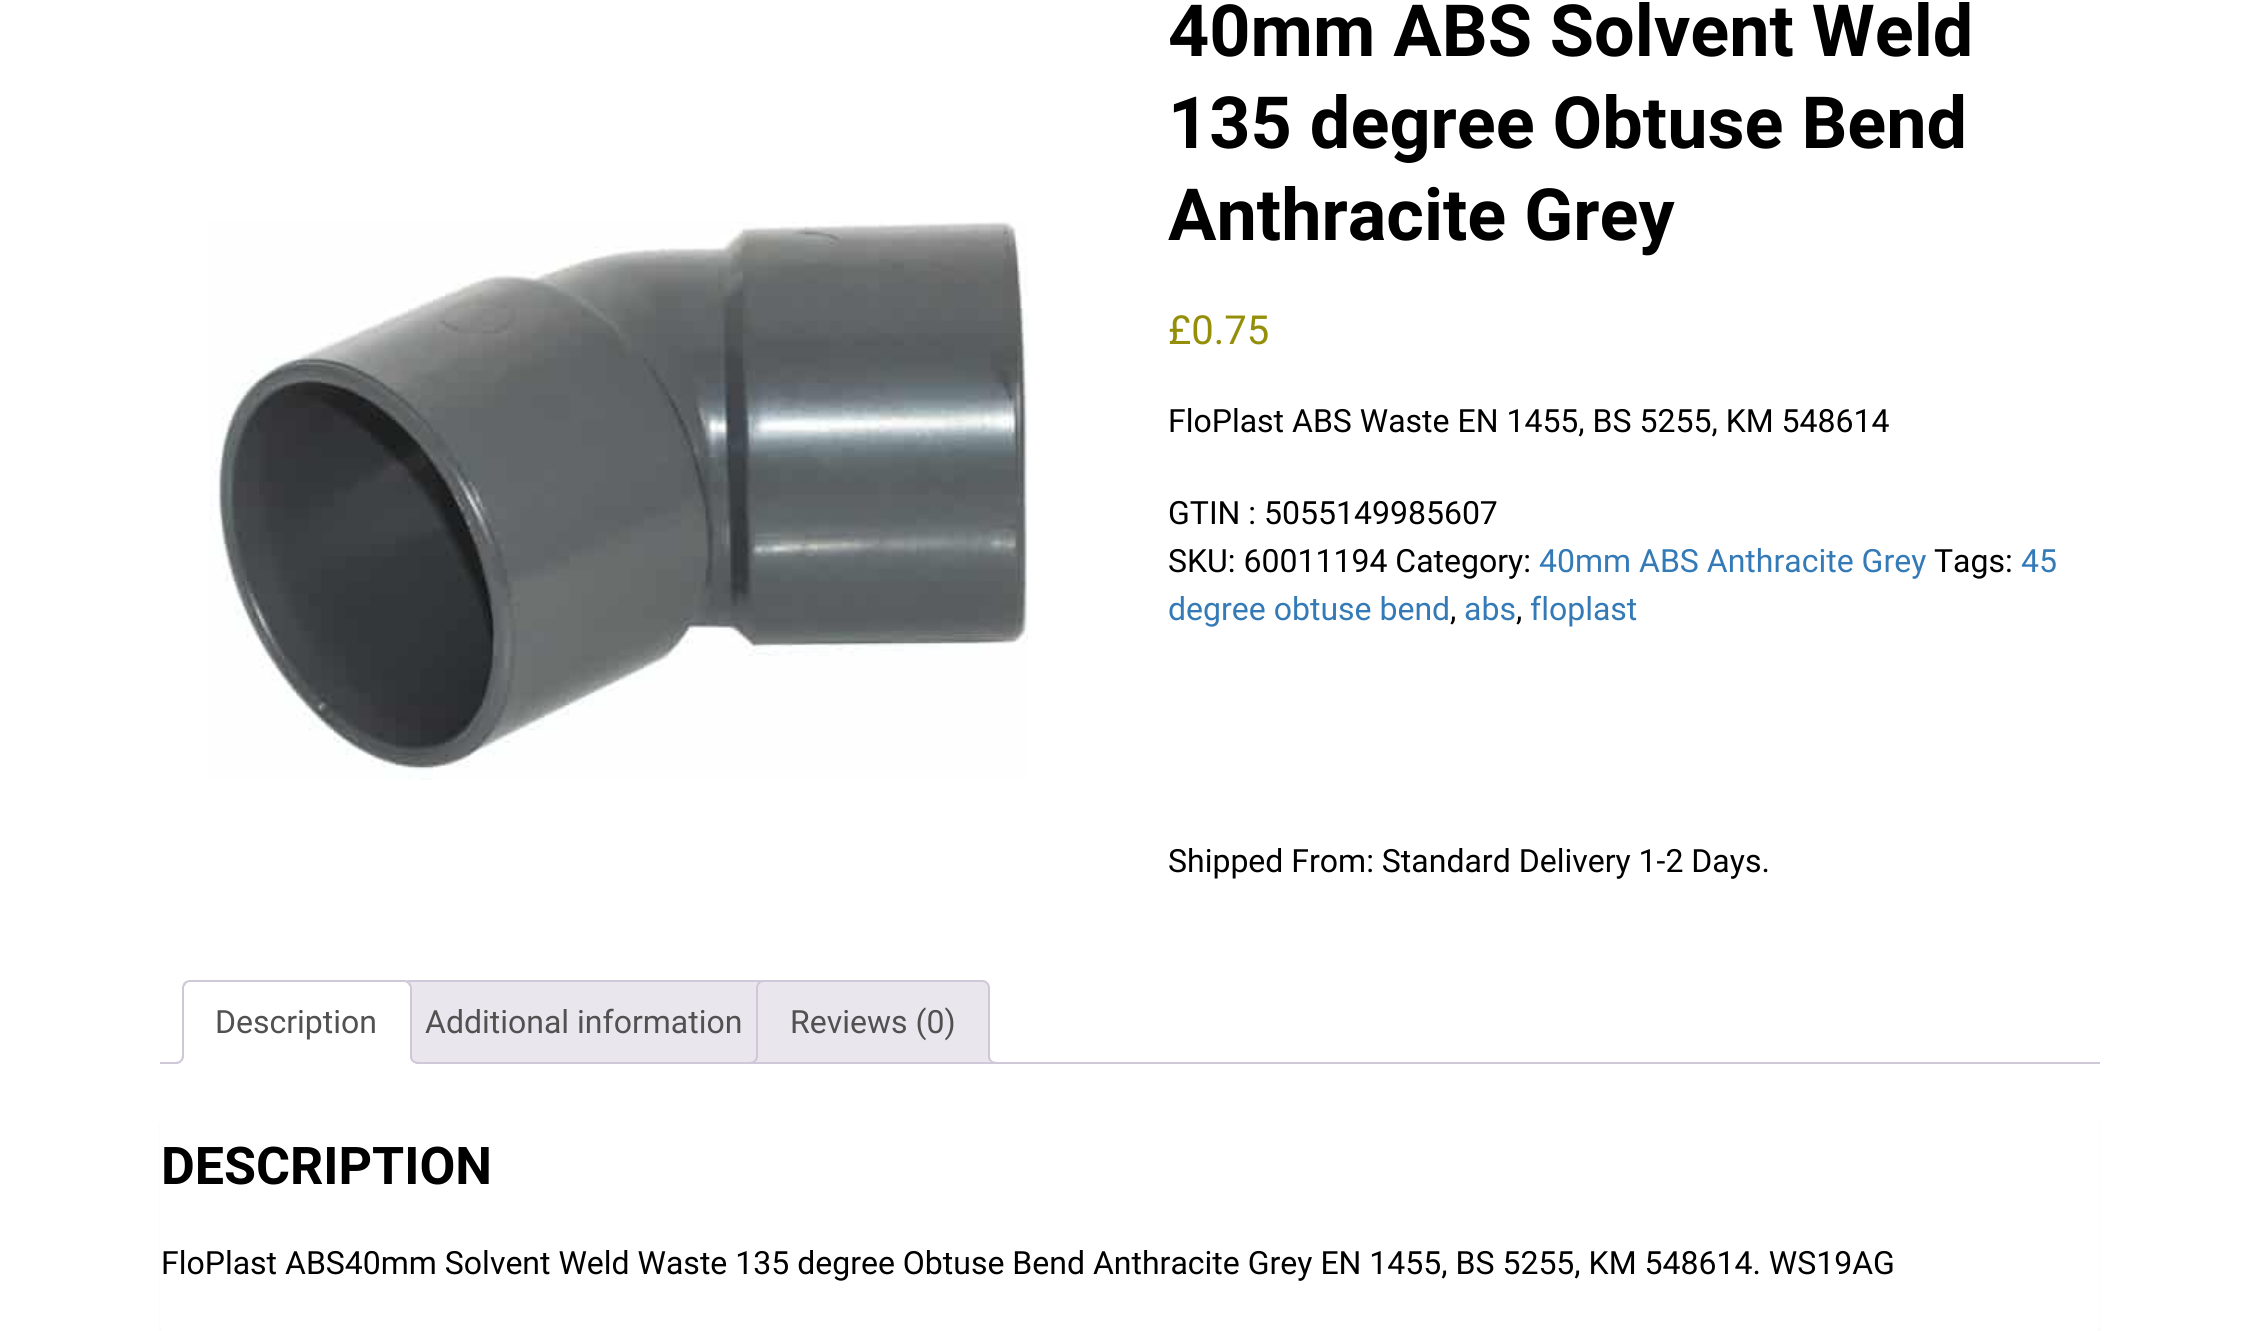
#include <cairo.h>
#include <math.h>
#include <stddef.h>

typedef struct { const char *family; double size; int italic, bold; unsigned color; } style_t;
static cairo_t *ctx;

static void ink(unsigned color) {
    cairo_set_source_rgb(ctx, (color >> 16) / 255.0, (color >> 8 & 255) / 255.0, (color & 255) / 255.0);
}

static void write(double x, double y, const char *s, const style_t *st) {
    cairo_select_font_face(ctx, st->family, st->italic ? CAIRO_FONT_SLANT_ITALIC : CAIRO_FONT_SLANT_NORMAL,
        st->bold ? CAIRO_FONT_WEIGHT_BOLD : CAIRO_FONT_WEIGHT_NORMAL);
    cairo_set_font_size(ctx, st->size);
    ink(st->color);
    cairo_move_to(ctx, x, y);
    cairo_show_text(ctx, s);
}

static void block(double x, double y, double w, double h, unsigned color) {
    ink(color);
    cairo_rectangle(ctx, x, y, w, h);
    cairo_fill(ctx);
}

static void round_path(double x, double y, double w, double h, double r) {
    cairo_new_sub_path(ctx);
    cairo_arc(ctx, x + w - r, y + h - r, r, 0, M_PI / 2);
    cairo_arc(ctx, x + r, y + h - r, r, M_PI / 2, M_PI);
    cairo_arc(ctx, x + r, y + r, r, M_PI, 1.5 * M_PI);
    cairo_arc(ctx, x + w - r, y + r, r, 1.5 * M_PI, 2 * M_PI);
    cairo_close_path(ctx);
}

static void blur_box(double x, double y, double w, double h, double r, double blur, double alpha) {
    cairo_push_group_with_content(ctx, CAIRO_CONTENT_ALPHA);
    cairo_set_operator(ctx, CAIRO_OPERATOR_SOURCE);
    for (int i = 15; i >= -15 && fmin(w, h) + blur * i / 3 > 0; i -= 2) {
        double e = blur * i / 6;
        cairo_set_source_rgba(ctx, 0, 0, 0, alpha * erfc((i - 1) / 8.5) / 2);
        round_path(x - e, y - e, w + 2 * e, h + 2 * e, fmax(0, fmin(r + e + blur * .6, fmin(w, h) / 2 + e)));
        cairo_fill(ctx);
    }
    cairo_pattern_t *soft = cairo_pop_group(ctx);
    cairo_mask(ctx, soft);
    cairo_pattern_destroy(soft);
}

static void paste(const char *path, double x, double y, double w, double h) {
    cairo_surface_t *image = cairo_image_surface_create_from_png(path);
    cairo_save(ctx);
    cairo_set_source_surface(ctx, image, x, y);
    cairo_rectangle(ctx, x, y, w, h);
    cairo_fill(ctx);
    cairo_restore(ctx);
    cairo_surface_destroy(image);
}

static const style_t s1 = {"Roboto", 72, 0, 1, 0x000000};
static const style_t s2 = {"Roboto", 40, 0, 0, 0x958e09};
static const style_t s3 = {"Roboto", 32, 0, 0, 0x000000};
static const style_t s4 = {"Roboto", 32, 0, 0, 0x337ab7};
static const style_t s5 = {"Roboto", 32, 0, 0, 0x515151};
static const style_t s6 = {"Roboto", 52, 0, 1, 0x000000};

int main(void) {
    cairo_surface_t *surface = cairo_image_surface_create(CAIRO_FORMAT_RGB24, 2257, 1331);
    ctx = cairo_create(surface);
    cairo_font_options_t *options = cairo_font_options_create();
    cairo_font_options_set_hint_metrics(options, CAIRO_HINT_METRICS_OFF);
    cairo_font_options_set_hint_style(options, CAIRO_HINT_STYLE_NONE);
    cairo_set_font_options(ctx, options);
    cairo_set_miter_limit(ctx, 4);
    ink(0xffffff);
    cairo_paint(ctx);
    paste("pic1.png", 209, 221, 819, 559);
    write(1168, 56, "40mm ABS Solvent Weld", &s1);
    write(1168, 148, "135 degree Obtuse Bend", &s1);
    write(1168, 240, "Anthracite Grey", &s1);
    write(1168, 344, "£0.75", &s2);
    write(1168, 432, "FloPlast ABS Waste EN 1455, BS 5255, KM 548614", &s3);
    write(1168, 524, "GTIN : 5055149985607", &s3);
    write(1168, 572, "SKU: 60011194 Category:", &s3);
    write(1539, 572, "40mm ABS Anthracite Grey", &s4);
    write(1934, 572, "Tags:", &s3);
    write(2021, 572, "45", &s4);
    write(1168, 620, "degree obtuse bend", &s4);
    write(1450, 620, ",", &s3);
    write(1464, 620, "abs", &s4);
    write(1516, 620, ",", &s3);
    write(1530, 620, "floplast", &s4);
    write(1168, 872, "Shipped From: Standard Delivery 1-2 Days.", &s3);
    block(409, 982, 350, 80, 0xe9e6ed);
    cairo_rectangle(ctx, 393, 981, 382, 82);
    ink(0xcfc8d8);
    cairo_stroke(ctx);
    ink(0xe9e6ed);
    cairo_new_path(ctx);
    cairo_move_to(ctx, 764, 981);
    cairo_line_to(ctx, 982, 981);
    cairo_curve_to(ctx, 986, 981, 989, 984, 989, 988);
    cairo_line_to(ctx, 989, 1063);
    cairo_line_to(ctx, 757, 1063);
    cairo_line_to(ctx, 757, 988);
    cairo_curve_to(ctx, 757, 984, 760, 981, 764, 981);
    cairo_close_path(ctx);
    cairo_fill_preserve(ctx);
    ink(0xcfc8d8);
    cairo_stroke(ctx);
    cairo_save(ctx);
    cairo_rectangle(ctx, 160, 980, 1940, 84);
    cairo_clip(ctx);
    ink(0xe9e6ed);
    cairo_new_path(ctx);
    cairo_move_to(ctx, 752, 1063.5);
    cairo_line_to(ctx, 752, 1068);
    cairo_curve_to(ctx, 759, 1068, 762, 1065, 762, 1058);
    cairo_line_to(ctx, 757.5, 1058);
    cairo_curve_to(ctx, 757, 1061, 755, 1063, 752, 1063.5);
    cairo_close_path(ctx);
    cairo_fill(ctx);
    cairo_restore(ctx);
    cairo_set_fill_rule(ctx, CAIRO_FILL_RULE_EVEN_ODD);
    cairo_new_path(ctx);
    cairo_move_to(ctx, 748, 1054);
    cairo_line_to(ctx, 758, 1054);
    cairo_curve_to(ctx, 758, 1061, 755, 1064, 748, 1064);
    cairo_close_path(ctx);
    cairo_move_to(ctx, 748, 1054);
    cairo_line_to(ctx, 756, 1054);
    cairo_curve_to(ctx, 756, 1060, 754, 1062, 748, 1062);
    cairo_close_path(ctx);
    cairo_fill(ctx);
    cairo_save(ctx);
    cairo_set_fill_rule(ctx, CAIRO_FILL_RULE_WINDING);
    cairo_rectangle(ctx, 160, 980, 1940, 84);
    cairo_clip(ctx);
    ink(0xe9e6ed);
    cairo_new_path(ctx);
    cairo_move_to(ctx, 984, 1058);
    cairo_curve_to(ctx, 984, 1065, 987, 1068, 994, 1068);
    cairo_line_to(ctx, 994, 1063.5);
    cairo_curve_to(ctx, 991, 1063, 989, 1061, 988.5, 1058);
    cairo_close_path(ctx);
    cairo_fill(ctx);
    cairo_restore(ctx);
    cairo_new_path(ctx);
    cairo_move_to(ctx, 988, 1054);
    cairo_line_to(ctx, 998, 1054);
    cairo_line_to(ctx, 998, 1064);
    cairo_curve_to(ctx, 993, 1064, 988, 1062, 988, 1056);
    cairo_close_path(ctx);
    cairo_move_to(ctx, 990, 1054);
    cairo_line_to(ctx, 998, 1054);
    cairo_line_to(ctx, 998, 1062);
    cairo_curve_to(ctx, 994, 1062, 990, 1061, 990, 1056);
    cairo_close_path(ctx);
    cairo_fill(ctx);
    block(160, 1062, 1940, 2, 0xcfc8d8);
    ink(0xffffff);
    cairo_new_path(ctx);
    cairo_move_to(ctx, 190, 980);
    cairo_line_to(ctx, 404, 980);
    cairo_curve_to(ctx, 408.5, 980, 412, 983.5, 412, 988);
    cairo_line_to(ctx, 412, 1064);
    cairo_line_to(ctx, 182, 1064);
    cairo_line_to(ctx, 182, 988);
    cairo_curve_to(ctx, 182, 983.5, 185.5, 980, 190, 980);
    cairo_close_path(ctx);
    cairo_fill(ctx);
    ink(0xcfc8d8);
    cairo_set_fill_rule(ctx, CAIRO_FILL_RULE_WINDING);
    cairo_new_path(ctx);
    cairo_move_to(ctx, 190, 980);
    cairo_curve_to(ctx, 188, 980, 186, 981, 184, 982);
    cairo_line_to(ctx, 186, 984);
    cairo_curve_to(ctx, 187, 983, 188, 982, 190, 982);
    cairo_line_to(ctx, 404, 982);
    cairo_curve_to(ctx, 406, 982, 407, 983, 408, 984);
    cairo_line_to(ctx, 410, 982);
    cairo_curve_to(ctx, 408, 981, 406, 980, 404, 980);
    cairo_close_path(ctx);
    cairo_fill(ctx);
    cairo_new_path(ctx);
    cairo_move_to(ctx, 412, 1064);
    cairo_line_to(ctx, 412, 988);
    cairo_curve_to(ctx, 412, 986, 411, 984, 410, 982);
    cairo_line_to(ctx, 408, 984);
    cairo_line_to(ctx, 410, 987);
    cairo_line_to(ctx, 410, 1062);
    cairo_close_path(ctx);
    cairo_fill(ctx);
    ink(0xffffff);
    cairo_new_path(ctx);
    cairo_move_to(ctx, 412, 1064);
    cairo_line_to(ctx, 410, 1062);
    cairo_line_to(ctx, 184, 1062);
    cairo_line_to(ctx, 182, 1064);
    cairo_close_path(ctx);
    cairo_fill(ctx);
    ink(0xcfc8d8);
    cairo_new_path(ctx);
    cairo_move_to(ctx, 182, 1064);
    cairo_line_to(ctx, 184, 1062);
    cairo_line_to(ctx, 184, 987);
    cairo_line_to(ctx, 186, 984);
    cairo_line_to(ctx, 184, 982);
    cairo_curve_to(ctx, 183, 984, 182, 986, 182, 988);
    cairo_close_path(ctx);
    cairo_fill(ctx);
    write(215, 1033, "Description", &s5);
    cairo_save(ctx);
    cairo_rectangle(ctx, 160, 980, 1940, 84);
    cairo_clip(ctx);
    ink(0xffffff);
    cairo_new_path(ctx);
    cairo_move_to(ctx, 178, 1063.5);
    cairo_line_to(ctx, 178, 1068);
    cairo_curve_to(ctx, 185, 1068, 188, 1065, 188, 1058);
    cairo_line_to(ctx, 183.5, 1058);
    cairo_curve_to(ctx, 183, 1061, 181, 1063, 178, 1063.5);
    cairo_close_path(ctx);
    cairo_fill(ctx);
    cairo_restore(ctx);
    ink(0xcfc8d8);
    cairo_set_fill_rule(ctx, CAIRO_FILL_RULE_EVEN_ODD);
    cairo_new_path(ctx);
    cairo_move_to(ctx, 174, 1054);
    cairo_line_to(ctx, 184, 1054);
    cairo_curve_to(ctx, 184, 1061, 181, 1064, 174, 1064);
    cairo_close_path(ctx);
    cairo_move_to(ctx, 174, 1054);
    cairo_line_to(ctx, 182, 1054);
    cairo_curve_to(ctx, 182, 1060, 180, 1062, 174, 1062);
    cairo_close_path(ctx);
    cairo_fill(ctx);
    cairo_save(ctx);
    cairo_set_fill_rule(ctx, CAIRO_FILL_RULE_WINDING);
    cairo_rectangle(ctx, 160, 980, 1940, 84);
    cairo_clip(ctx);
    ink(0xffffff);
    cairo_new_path(ctx);
    cairo_move_to(ctx, 406, 1058);
    cairo_curve_to(ctx, 406, 1065, 409, 1068, 416, 1068);
    cairo_line_to(ctx, 416, 1063.5);
    cairo_curve_to(ctx, 413, 1063, 411, 1061, 410.5, 1058);
    cairo_close_path(ctx);
    cairo_fill(ctx);
    cairo_restore(ctx);
    cairo_new_path(ctx);
    cairo_move_to(ctx, 410, 1054);
    cairo_line_to(ctx, 420, 1054);
    cairo_line_to(ctx, 420, 1064);
    cairo_curve_to(ctx, 415, 1064, 410, 1062, 410, 1056);
    cairo_close_path(ctx);
    cairo_move_to(ctx, 412, 1054);
    cairo_line_to(ctx, 420, 1054);
    cairo_line_to(ctx, 420, 1062);
    cairo_curve_to(ctx, 416, 1062, 412, 1061, 412, 1056);
    cairo_close_path(ctx);
    cairo_fill(ctx);
    write(425, 1033, "Additional information", &s5);
    write(790, 1033, "Reviews (0)", &s5);
    ink(0x000000);
    blur_box(160, 1118, 1940, 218, 8, 1, 0.05);
    ink(0xffffff);
    round_path(160, 1116, 1940, 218, 8);
    cairo_fill(ctx);
    write(161, 1184, "DESCRIPTION", &s6);
    write(161, 1274, "FloPlast ABS40mm Solvent Weld Waste 135 degree Obtuse Bend Anthracite Grey EN 1455, BS 5255, KM 548614. WS19AG", &s3);
    cairo_surface_write_to_png(surface, "screenshot.png");
    cairo_font_options_destroy(options);
    cairo_destroy(ctx);
    cairo_surface_destroy(surface);
    return 0;
}
